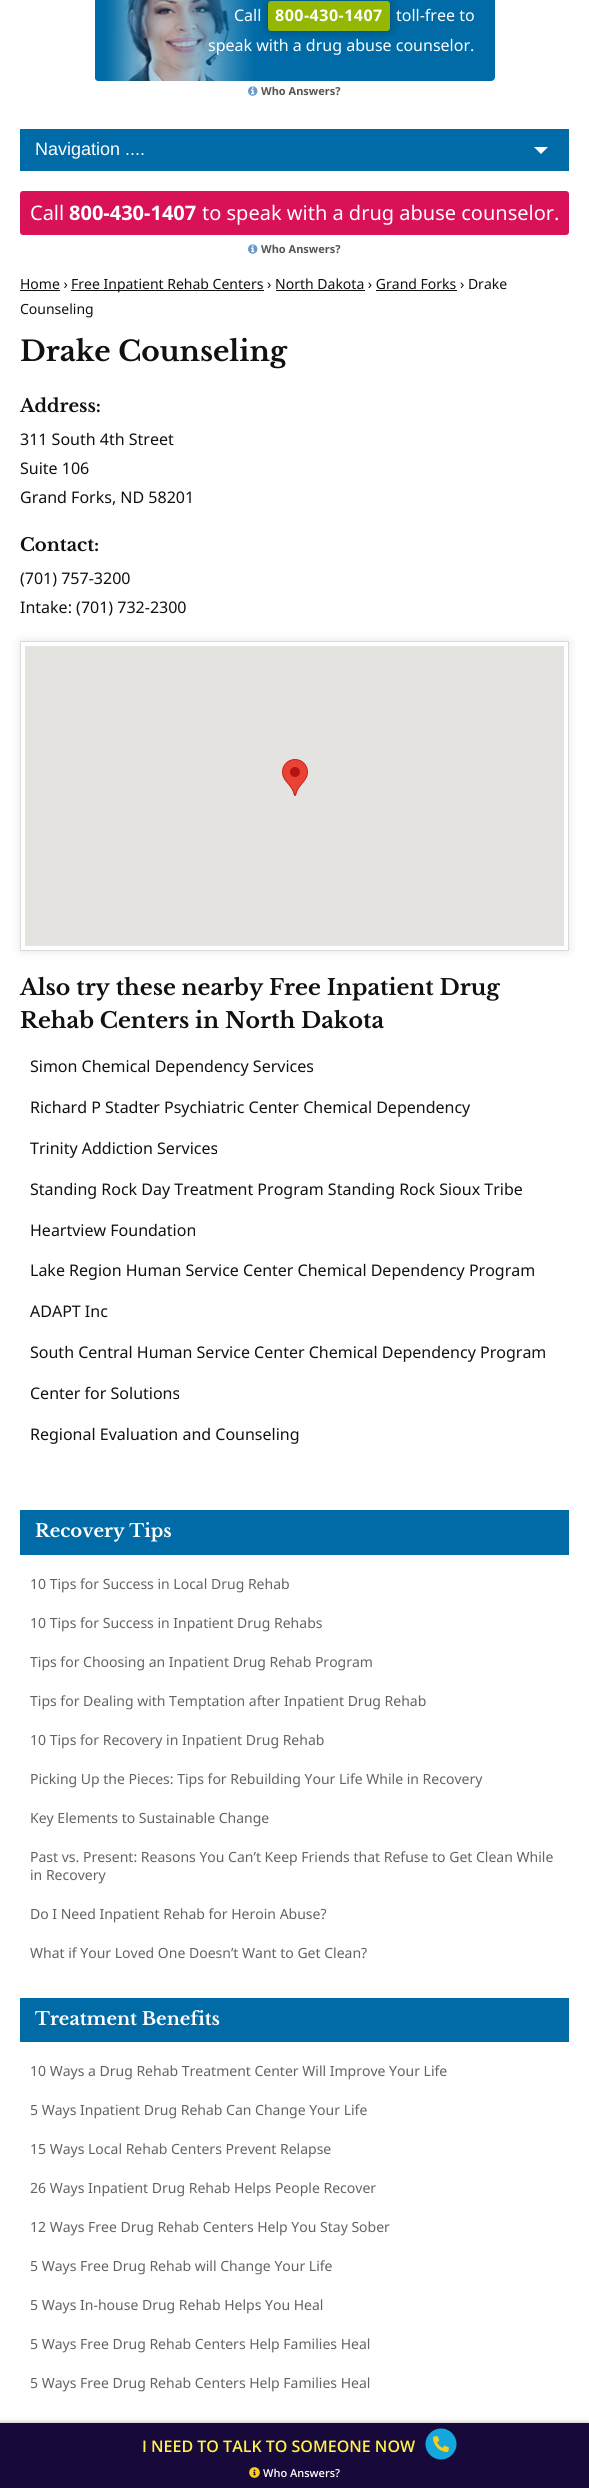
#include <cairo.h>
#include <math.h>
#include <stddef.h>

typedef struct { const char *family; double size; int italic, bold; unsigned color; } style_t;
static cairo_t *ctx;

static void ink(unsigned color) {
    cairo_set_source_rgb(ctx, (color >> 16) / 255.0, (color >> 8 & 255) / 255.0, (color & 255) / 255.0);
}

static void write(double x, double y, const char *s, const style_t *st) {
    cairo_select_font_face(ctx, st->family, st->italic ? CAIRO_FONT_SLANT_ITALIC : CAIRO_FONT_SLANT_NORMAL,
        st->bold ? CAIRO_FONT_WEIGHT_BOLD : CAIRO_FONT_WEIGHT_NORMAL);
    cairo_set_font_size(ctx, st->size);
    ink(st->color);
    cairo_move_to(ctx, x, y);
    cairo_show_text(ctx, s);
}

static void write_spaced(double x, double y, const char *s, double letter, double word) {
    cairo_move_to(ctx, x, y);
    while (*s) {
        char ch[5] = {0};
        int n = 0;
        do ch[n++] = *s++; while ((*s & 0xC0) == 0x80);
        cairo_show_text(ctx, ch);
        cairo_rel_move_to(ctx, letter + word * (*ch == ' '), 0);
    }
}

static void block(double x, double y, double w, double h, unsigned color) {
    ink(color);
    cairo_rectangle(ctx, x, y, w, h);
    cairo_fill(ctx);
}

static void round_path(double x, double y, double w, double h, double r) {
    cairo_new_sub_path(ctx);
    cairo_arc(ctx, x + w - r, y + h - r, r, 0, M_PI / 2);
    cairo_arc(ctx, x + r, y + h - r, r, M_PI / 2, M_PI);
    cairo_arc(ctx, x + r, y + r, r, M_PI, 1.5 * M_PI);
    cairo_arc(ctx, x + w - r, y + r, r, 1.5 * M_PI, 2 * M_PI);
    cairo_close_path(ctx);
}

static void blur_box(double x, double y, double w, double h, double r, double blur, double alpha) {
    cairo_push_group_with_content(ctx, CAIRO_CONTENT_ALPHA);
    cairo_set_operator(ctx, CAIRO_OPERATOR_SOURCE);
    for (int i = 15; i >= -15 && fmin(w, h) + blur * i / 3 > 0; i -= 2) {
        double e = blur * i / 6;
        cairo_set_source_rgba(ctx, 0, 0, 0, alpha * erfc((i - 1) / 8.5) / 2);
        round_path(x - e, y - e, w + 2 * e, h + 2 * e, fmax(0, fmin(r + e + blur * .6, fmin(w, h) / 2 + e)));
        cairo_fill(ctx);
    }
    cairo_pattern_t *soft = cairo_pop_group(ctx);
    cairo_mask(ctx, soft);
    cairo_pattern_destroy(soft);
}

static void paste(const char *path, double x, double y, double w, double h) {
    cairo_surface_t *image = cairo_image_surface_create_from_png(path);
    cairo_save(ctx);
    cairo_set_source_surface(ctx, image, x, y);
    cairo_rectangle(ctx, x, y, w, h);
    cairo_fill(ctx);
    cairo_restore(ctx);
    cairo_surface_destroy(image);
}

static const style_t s1 = {"Noto Sans", 16, 0, 0, 0xffffff};
static const style_t s2 = {"Noto Sans", 11, 0, 1, 0x555555};
static const style_t s3 = {"Liberation Sans", 18, 0, 0, 0xffffff};
static const style_t s4 = {"Noto Sans", 20, 0, 0, 0xffffff};
static const style_t s5 = {"Noto Sans", 20, 0, 1, 0xffffff};
static const style_t s6 = {"Noto Sans", 14, 0, 0, 0x111111};
static const style_t s7 = {"Libre Baskerville", 28, 0, 1, 0x111111};
static const style_t s8 = {"Libre Baskerville", 18, 0, 1, 0x111111};
static const style_t s9 = {"Noto Sans", 16, 0, 0, 0x111111};
static const style_t s10 = {"Libre Baskerville", 22, 0, 1, 0x111111};
static const style_t s11 = {"Libre Baskerville", 18, 0, 1, 0xffffff};
static const style_t s12 = {"Noto Sans", 14, 0, 0, 0x636363};
static const style_t s13 = {"Open Sans SemiBold", 16, 0, 0, 0xfff04b};
static const style_t s14 = {"Open Sans SemiBold", 11, 0, 0, 0xffffff};

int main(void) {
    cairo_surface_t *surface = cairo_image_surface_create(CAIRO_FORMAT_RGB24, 589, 2488);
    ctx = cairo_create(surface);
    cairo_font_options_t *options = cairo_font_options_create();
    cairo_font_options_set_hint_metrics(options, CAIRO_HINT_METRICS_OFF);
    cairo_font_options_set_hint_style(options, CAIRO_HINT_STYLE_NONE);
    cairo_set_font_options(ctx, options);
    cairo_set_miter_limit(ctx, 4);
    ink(0xffffff);
    cairo_paint(ctx);
    ink(0x006ba6);
    round_path(95, -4, 400, 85, 4);
    cairo_fill(ctx);
    paste("pic1.png", 95, 0, 158, 81);
    write(234, 21, "Call", &s1);
    ink(0x000000);
    blur_box(268, 1, 122, 30, 3, 5, 0.3);
    ink(0x94b701);
    round_path(268, 1, 122, 30, 3);
    cairo_fill(ctx);
    cairo_select_font_face(ctx, "Noto Sans", CAIRO_FONT_SLANT_NORMAL, CAIRO_FONT_WEIGHT_BOLD);
    ink(0xffffff);
    write_spaced(275, 21, "800-430-1407", 0.5, 0);
    write(396, 21, "toll-free to", &s1);
    write(208, 51, "speak with a drug abuse counselor.", &s1);
    paste("pic2.png", 248, 86, 10, 10);
    write(261, 95, "Who Answers?", &s2);
    block(20, 129, 549, 42, 0x006ba6);
    paste("pic3.png", 534, 147, 14, 7);
    write(35, 155, "Navigation ....", &s3);
    ink(0xd81159);
    round_path(20, 191, 549, 44, 3);
    cairo_fill(ctx);
    write(30, 220, "Call", &s4);
    write(69, 220, "800-430-1407", &s5);
    write(202, 220, "to speak with a drug abuse counselor.", &s4);
    paste("pic2.png", 248, 244, 10, 10);
    write(261, 253, "Who Answers?", &s2);
    write(20, 289, "Home ›", &s6);
    block(20, 290, 40, 1, 0x111111);
    block(71, 290, 193, 1, 0x111111);
    write(71, 289, "Free Inpatient Rehab Centers › North Dakota › Grand Forks › Drake", &s6);
    block(276, 290, 89, 1, 0x111111);
    block(376, 290, 81, 1, 0x111111);
    write(20, 314, "Counseling", &s6);
    write(20, 361, "Drake Counseling", &s7);
    write(20, 412, "Address:", &s8);
    write(20, 445, "311 South 4th Street", &s9);
    write(20, 474, "Suite 106", &s9);
    write(20, 503, "Grand Forks, ND 58201", &s9);
    write(20, 551, "Contact:", &s8);
    write(20, 584, "(701) 757-3200", &s9);
    write(20, 613, "Intake: (701) 732-2300", &s9);
    cairo_save(ctx);
    cairo_set_fill_rule(ctx, CAIRO_FILL_RULE_EVEN_ODD);
    cairo_new_path(ctx);
    cairo_move_to(ctx, 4, 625);
    cairo_line_to(ctx, 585, 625);
    cairo_line_to(ctx, 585, 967);
    cairo_line_to(ctx, 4, 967);
    cairo_close_path(ctx);
    cairo_move_to(ctx, 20, 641);
    cairo_line_to(ctx, 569, 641);
    cairo_line_to(ctx, 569, 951);
    cairo_line_to(ctx, 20, 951);
    cairo_close_path(ctx);
    cairo_clip(ctx);
    ink(0x000000);
    blur_box(20, 641, 549, 310, 0, 5, 0.1);
    cairo_restore(ctx);
    cairo_rectangle(ctx, 20.5, 641.5, 548, 309);
    ink(0xd9d9d9);
    cairo_set_line_width(ctx, 1);
    cairo_stroke(ctx);
    block(25, 646, 539, 300, 0xe5e3df);
    paste("pic4.png", 282, 759, 26, 37);
    write(20, 995, "Also try these nearby Free Inpatient Drug", &s10);
    write(20, 1028, "Rehab Centers in North Dakota", &s10);
    write(30, 1072, "Simon Chemical Dependency Services", &s9);
    write(30, 1113, "Richard P Stadter Psychiatric Center Chemical Dependency", &s9);
    write(30, 1154, "Trinity Addiction Services", &s9);
    write(30, 1195, "Standing Rock Day Treatment Program Standing Rock Sioux Tribe", &s9);
    write(30, 1236, "Heartview Foundation", &s9);
    write(30, 1276, "Lake Region Human Service Center Chemical Dependency Program", &s9);
    write(30, 1317, "ADAPT Inc", &s9);
    write(30, 1358, "South Central Human Service Center Chemical Dependency Program", &s9);
    write(30, 1399, "Center for Solutions", &s9);
    write(30, 1440, "Regional Evaluation and Counseling", &s9);
    block(20, 1510, 549, 45, 0x006ba6);
    write(35, 1537, "Recovery Tips", &s11);
    write(30, 1589, "10 Tips for Success in Local Drug Rehab", &s12);
    write(30, 1628, "10 Tips for Success in Inpatient Drug Rehabs", &s12);
    write(30, 1667, "Tips for Choosing an Inpatient Drug Rehab Program", &s12);
    write(30, 1706, "Tips for Dealing with Temptation after Inpatient Drug Rehab", &s12);
    write(30, 1745, "10 Tips for Recovery in Inpatient Drug Rehab", &s12);
    write(30, 1784, "Picking Up the Pieces: Tips for Rebuilding Your Life While in Recovery", &s12);
    write(30, 1823, "Key Elements to Sustainable Change", &s12);
    write(30, 1862, "Past vs. Present: Reasons You Can’t Keep Friends that Refuse to Get Clean While", &s12);
    write(30, 1880, "in Recovery", &s12);
    write(30, 1919, "Do I Need Inpatient Rehab for Heroin Abuse?", &s12);
    write(30, 1958, "What if Your Loved One Doesn’t Want to Get Clean?", &s12);
    block(20, 1998, 549, 44, 0x006ba6);
    write(35, 2025, "Treatment Benefits", &s11);
    write(30, 2076, "10 Ways a Drug Rehab Treatment Center Will Improve Your Life", &s12);
    write(30, 2115, "5 Ways Inpatient Drug Rehab Can Change Your Life", &s12);
    write(30, 2154, "15 Ways Local Rehab Centers Prevent Relapse", &s12);
    write(30, 2193, "26 Ways Inpatient Drug Rehab Helps People Recover", &s12);
    write(30, 2232, "12 Ways Free Drug Rehab Centers Help You Stay Sober", &s12);
    write(30, 2271, "5 Ways Free Drug Rehab will Change Your Life", &s12);
    write(30, 2310, "5 Ways In-house Drug Rehab Helps You Heal", &s12);
    write(30, 2349, "5 Ways Free Drug Rehab Centers Help Families Heal", &s12);
    write(30, 2388, "5 Ways Free Drug Rehab Centers Help Families Heal", &s12);
    ink(0x3b2727);
    blur_box(0, 2423, 589, 65, 0, 2.5, 0.4);
    block(0, 2423, 589, 65, 0x170939);
    write(142, 2452, "I NEED TO TALK TO SOMEONE NOW", &s13);
    paste("pic5.png", 425, 2428, 32, 32);
    paste("pic6.png", 433, 2436, 16, 16);
    paste("pic7.png", 249, 2467, 11, 11);
    write(263, 2477, "Who Answers?", &s14);
    cairo_surface_write_to_png(surface, "screenshot.png");
    cairo_font_options_destroy(options);
    cairo_destroy(ctx);
    cairo_surface_destroy(surface);
    return 0;
}
